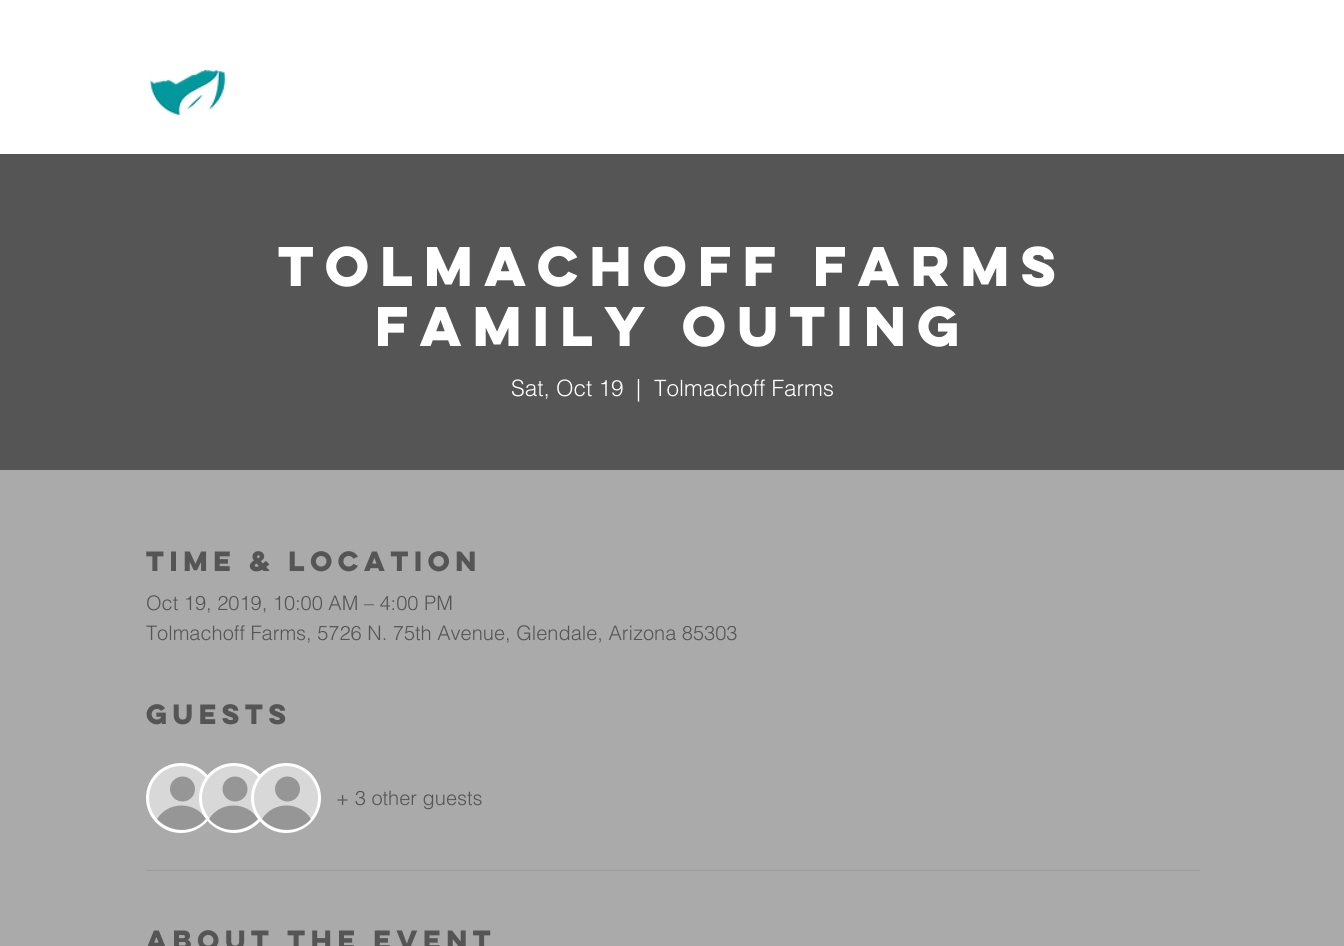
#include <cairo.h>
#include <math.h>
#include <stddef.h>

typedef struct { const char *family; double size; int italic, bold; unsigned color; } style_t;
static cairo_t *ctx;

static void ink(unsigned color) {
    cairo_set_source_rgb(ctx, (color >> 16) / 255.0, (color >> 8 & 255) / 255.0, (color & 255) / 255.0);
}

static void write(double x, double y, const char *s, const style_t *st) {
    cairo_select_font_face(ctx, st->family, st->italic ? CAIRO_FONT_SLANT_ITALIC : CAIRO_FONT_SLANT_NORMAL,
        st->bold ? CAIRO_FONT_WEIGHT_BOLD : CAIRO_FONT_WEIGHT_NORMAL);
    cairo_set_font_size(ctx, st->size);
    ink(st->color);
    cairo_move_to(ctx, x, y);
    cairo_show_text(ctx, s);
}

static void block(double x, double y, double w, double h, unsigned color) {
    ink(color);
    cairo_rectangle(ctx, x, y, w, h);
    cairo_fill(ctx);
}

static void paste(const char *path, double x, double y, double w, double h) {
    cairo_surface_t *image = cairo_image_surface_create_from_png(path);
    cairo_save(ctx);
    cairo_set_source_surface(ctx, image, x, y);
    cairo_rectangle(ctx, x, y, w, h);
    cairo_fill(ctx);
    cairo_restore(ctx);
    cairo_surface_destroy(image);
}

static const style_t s1 = {"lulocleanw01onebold", 50, 0, 1, 0xffffff};
static const style_t s2 = {"helvetica Light", 22.5, 0, 0, 0xffffff};
static const style_t s3 = {"lulocleanw01onebold", 25, 0, 1, 0x555555};
static const style_t s4 = {"helvetica Light", 20, 0, 0, 0x555555};

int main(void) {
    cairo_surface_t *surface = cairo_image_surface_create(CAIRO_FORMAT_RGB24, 1344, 946);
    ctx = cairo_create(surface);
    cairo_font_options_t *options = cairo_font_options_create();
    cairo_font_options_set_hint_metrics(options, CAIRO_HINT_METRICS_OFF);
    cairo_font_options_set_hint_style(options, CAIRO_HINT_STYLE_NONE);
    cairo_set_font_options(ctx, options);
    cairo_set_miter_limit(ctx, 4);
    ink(0xffffff);
    cairo_paint(ctx);
    paste("pic1.png", 149, 69, 77, 47);
    block(0, 154, 1344, 316, 0x555555);
    write(278, 286, "Tolmachoff Farms", &s1);
    write(375, 346, "Family Outing", &s1);
    write(511, 396, "Sat, Oct 19", &s2);
    write(636, 396, "|", &s2);
    write(654, 396, "Tolmachoff Farms", &s2);
    block(0, 470, 1344, 476, 0xaaaaaa);
    write(146, 571, "Time & Location", &s3);
    write(146, 610, "Oct 19, 2019, 10:00 AM – 4:00 PM", &s4);
    write(146, 640, "Tolmachoff Farms, 5726 N. 75th Avenue, Glendale, Arizona 85303", &s4);
    write(146, 724, "Guests", &s3);
    ink(0xd8d8d8);
    cairo_new_path(ctx);
    cairo_arc(ctx, 181, 798, 33.5, 0, 2 * M_PI);
    cairo_fill_preserve(ctx);
    ink(0xffffff);
    cairo_set_line_width(ctx, 3);
    cairo_stroke(ctx);
    ink(0x969696);
    cairo_arc(ctx, 182.5, 789, 12.5, 0, 2 * M_PI);
    cairo_fill(ctx);
    cairo_new_path(ctx);
    cairo_move_to(ctx, 206, 819);
    cairo_curve_to(ctx, 193, 834, 170, 833, 157, 819);
    cairo_curve_to(ctx, 168, 801, 195, 801, 206, 819);
    cairo_close_path(ctx);
    cairo_fill(ctx);
    ink(0xd8d8d8);
    cairo_arc(ctx, 234, 798, 33.5, 0, 2 * M_PI);
    cairo_fill_preserve(ctx);
    ink(0xffffff);
    cairo_stroke(ctx);
    ink(0x969696);
    cairo_arc(ctx, 235, 789, 12.5, 0, 2 * M_PI);
    cairo_fill(ctx);
    cairo_new_path(ctx);
    cairo_move_to(ctx, 258, 819);
    cairo_curve_to(ctx, 245, 833, 222, 834, 209, 819);
    cairo_curve_to(ctx, 220, 801, 247, 801, 258, 819);
    cairo_close_path(ctx);
    cairo_fill(ctx);
    ink(0xd8d8d8);
    cairo_arc(ctx, 286, 798, 33.5, 0, 2 * M_PI);
    cairo_fill_preserve(ctx);
    ink(0xffffff);
    cairo_stroke(ctx);
    ink(0x969696);
    cairo_arc(ctx, 287.5, 789, 12.5, 0, 2 * M_PI);
    cairo_fill(ctx);
    cairo_new_path(ctx);
    cairo_move_to(ctx, 311, 819);
    cairo_curve_to(ctx, 298, 834, 275, 833, 262, 819);
    cairo_curve_to(ctx, 273, 801, 300, 801, 311, 819);
    cairo_close_path(ctx);
    cairo_fill(ctx);
    write(336, 805, "+ 3 other guests", &s4);
    block(146, 870, 1054, 1, 0x9d9d9d);
    write(146, 950, "About The Event", &s3);
    cairo_surface_write_to_png(surface, "screenshot.png");
    cairo_font_options_destroy(options);
    cairo_destroy(ctx);
    cairo_surface_destroy(surface);
    return 0;
}
